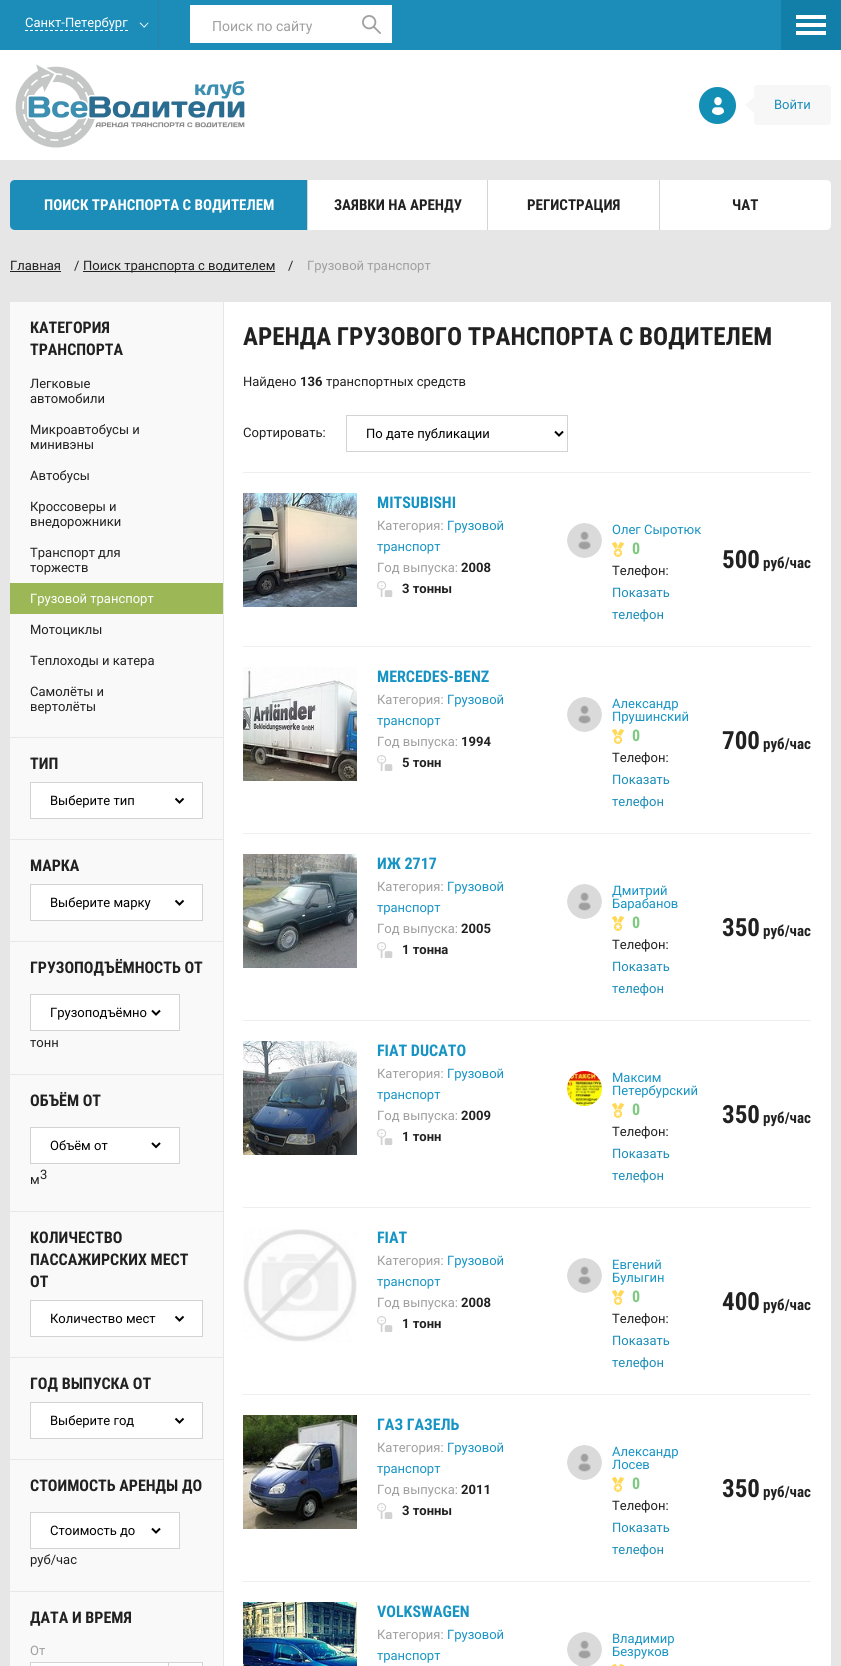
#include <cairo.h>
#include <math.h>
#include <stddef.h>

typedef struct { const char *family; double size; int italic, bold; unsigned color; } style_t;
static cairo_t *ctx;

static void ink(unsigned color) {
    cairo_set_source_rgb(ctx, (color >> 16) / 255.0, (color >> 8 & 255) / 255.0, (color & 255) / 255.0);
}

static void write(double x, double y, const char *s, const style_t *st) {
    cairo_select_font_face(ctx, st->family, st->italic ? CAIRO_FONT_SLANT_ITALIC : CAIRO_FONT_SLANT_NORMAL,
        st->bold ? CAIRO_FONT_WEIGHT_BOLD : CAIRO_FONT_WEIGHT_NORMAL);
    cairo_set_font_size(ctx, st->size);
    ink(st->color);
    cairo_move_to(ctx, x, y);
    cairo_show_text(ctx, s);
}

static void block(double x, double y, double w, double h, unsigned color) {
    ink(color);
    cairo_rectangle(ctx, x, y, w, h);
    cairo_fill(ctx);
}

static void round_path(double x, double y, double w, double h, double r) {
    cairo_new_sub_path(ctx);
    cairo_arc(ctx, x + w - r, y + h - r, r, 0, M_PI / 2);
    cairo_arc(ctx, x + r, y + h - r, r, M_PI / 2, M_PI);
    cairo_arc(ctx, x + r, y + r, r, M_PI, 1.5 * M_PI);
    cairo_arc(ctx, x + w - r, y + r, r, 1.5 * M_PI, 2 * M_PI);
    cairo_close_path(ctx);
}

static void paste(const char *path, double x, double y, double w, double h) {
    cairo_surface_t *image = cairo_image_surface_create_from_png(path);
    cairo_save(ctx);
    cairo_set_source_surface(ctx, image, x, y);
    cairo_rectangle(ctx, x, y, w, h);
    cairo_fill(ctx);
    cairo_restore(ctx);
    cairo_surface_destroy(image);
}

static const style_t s1 = {"Roboto", 13, 0, 0, 0xffffff};
static const style_t s2 = {"Roboto", 14, 0, 0, 0x9f9f9f};
static const style_t s3 = {"Roboto", 13, 0, 0, 0x1b8db8};
static const style_t s4 = {"Roboto Condensed", 15, 0, 1, 0xffffff};
static const style_t s5 = {"Roboto Condensed", 15, 0, 1, 0x212121};
static const style_t s6 = {"Roboto", 13, 0, 0, 0x212121};
static const style_t s7 = {"Roboto", 13, 0, 0, 0x9f9f9f};
static const style_t s8 = {"Roboto Condensed", 16, 0, 1, 0x212121};
static const style_t s9 = {"Roboto", 13, 0, 0, 0x000000};
static const style_t s10 = {"Roboto Condensed", 25, 0, 1, 0x212121};
static const style_t s11 = {"Roboto", 13, 0, 1, 0x212121};
static const style_t s12 = {"Roboto Condensed", 16, 0, 1, 0x1794c4};
static const style_t s13 = {"Roboto", 13, 0, 0, 0x1794c4};
static const style_t s14 = {"Roboto Condensed", 16, 0, 1, 0x7cca7e};

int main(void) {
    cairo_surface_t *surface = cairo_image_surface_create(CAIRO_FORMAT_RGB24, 841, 1666);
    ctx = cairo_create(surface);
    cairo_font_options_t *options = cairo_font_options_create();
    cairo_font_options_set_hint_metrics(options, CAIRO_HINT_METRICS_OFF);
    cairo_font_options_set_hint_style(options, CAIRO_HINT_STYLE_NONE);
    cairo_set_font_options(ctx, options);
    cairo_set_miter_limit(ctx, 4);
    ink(0xe6e6e6);
    cairo_paint(ctx);
    block(0, 0, 781, 50, 0x1b8db8);
    block(158, 0, 1, 50, 0x2a83a4);
    write(25, 27, "Санкт-Петербург", &s1);
    cairo_new_path(ctx);
    cairo_move_to(ctx, 25, 30.5);
    cairo_line_to(ctx, 128, 30.5);
    cairo_set_line_width(ctx, 1);
    cairo_set_dash(ctx, (double[]){3, 2}, 2, 0);
    cairo_stroke(ctx);
    cairo_new_path(ctx);
    cairo_move_to(ctx, 139.5, 23);
    cairo_line_to(ctx, 140.5, 22.5);
    cairo_line_to(ctx, 144.5, 27);
    cairo_line_to(ctx, 144, 27.5);
    cairo_close_path(ctx);
    cairo_fill(ctx);
    cairo_new_path(ctx);
    cairo_move_to(ctx, 148, 22.5);
    cairo_line_to(ctx, 148.5, 23);
    cairo_line_to(ctx, 144.5, 27.5);
    cairo_line_to(ctx, 143.5, 27);
    cairo_close_path(ctx);
    cairo_fill(ctx);
    block(781, 0, 60, 50, 0x127fa8);
    block(796, 15, 30, 4, 0xffffff);
    block(796, 23, 30, 4, 0xffffff);
    block(796, 31, 30, 4, 0xffffff);
    block(0, 50, 841, 110, 0xffffff);
    block(190, 5, 202, 38, 0xffffff);
    write(212, 31, "Поиск по сайту", &s2);
    paste("pic1.png", 362, 15, 19, 19);
    paste("pic2.png", 15, 64, 230, 84);
    paste("pic3.png", 699, 87, 37, 37);
    ink(0xf7f7f7);
    round_path(754, 85, 77, 40, 3);
    cairo_fill(ctx);
    cairo_new_path(ctx);
    cairo_move_to(ctx, 754, 97);
    cairo_line_to(ctx, 754, 113);
    cairo_line_to(ctx, 745, 105);
    cairo_close_path(ctx);
    cairo_fill(ctx);
    write(774, 109, "Войти", &s3);
    cairo_new_path(ctx);
    cairo_move_to(ctx, 15, 180);
    cairo_line_to(ctx, 308, 180);
    cairo_line_to(ctx, 308, 230);
    cairo_line_to(ctx, 15, 230);
    cairo_curve_to(ctx, 12, 230, 10, 228, 10, 225);
    cairo_line_to(ctx, 10, 185);
    cairo_curve_to(ctx, 10, 182, 12, 180, 15, 180);
    cairo_close_path(ctx);
    cairo_fill(ctx);
    write(44, 210, "ПОИСК ТРАНСПОРТА С ВОДИТЕЛЕМ", &s4);
    block(307, 180, 1, 50, 0xd5d5d5);
    block(308, 180, 179, 50, 0xffffff);
    write(334, 210, "ЗАЯВКИ НА АРЕНДУ", &s5);
    block(487, 180, 1, 50, 0xd5d5d5);
    block(488, 180, 171, 50, 0xffffff);
    write(527, 210, "РЕГИСТРАЦИЯ", &s5);
    block(659, 180, 1, 50, 0xd5d5d5);
    ink(0xffffff);
    cairo_new_path(ctx);
    cairo_move_to(ctx, 660, 180);
    cairo_line_to(ctx, 826, 180);
    cairo_curve_to(ctx, 829, 180, 831, 182, 831, 185);
    cairo_line_to(ctx, 831, 225);
    cairo_curve_to(ctx, 831, 228, 829, 230, 826, 230);
    cairo_line_to(ctx, 660, 230);
    cairo_close_path(ctx);
    cairo_fill(ctx);
    write(732, 210, "ЧАТ", &s5);
    write(10, 270, "Главная", &s6);
    block(10, 271, 51, 1, 0x212121);
    write(74, 270, "/", &s6);
    block(83, 271, 192, 1, 0x212121);
    write(83, 270, "Поиск транспорта c водителем", &s6);
    write(288, 270, "/", &s6);
    write(307, 270, "Грузовой транспорт", &s7);
    block(224, 302, 607, 1364, 0xffffff);
    block(10, 302, 213, 1364, 0xf9f9f9);
    block(10, 737, 213, 1, 0xe8e8e8);
    write(30, 333, "КАТЕГОРИЯ", &s8);
    write(30, 355, "ТРАНСПОРТА", &s8);
    write(30, 388, "Легковые", &s6);
    write(30, 403, "автомобили", &s6);
    write(30, 434, "Микроавтобусы и", &s6);
    write(30, 449, "минивэны", &s6);
    write(30, 480, "Автобусы", &s6);
    write(30, 511, "Кроссоверы и", &s6);
    write(30, 526, "внедорожники", &s6);
    write(30, 557, "Транспорт для", &s6);
    write(30, 572, "торжеств", &s6);
    block(10, 583, 213, 31, 0x9bb756);
    write(30, 603, "Грузовой транспорт", &s1);
    write(30, 634, "Мотоциклы", &s6);
    write(30, 665, "Теплоходы и катера", &s6);
    write(30, 696, "Самолёты и", &s6);
    write(30, 711, "вертолёты", &s6);
    block(10, 839, 213, 1, 0xe8e8e8);
    write(30, 769, "ТИП", &s8);
    ink(0xffffff);
    cairo_rectangle(ctx, 30.5, 782.5, 172, 36);
    cairo_fill_preserve(ctx);
    ink(0xd3d3d3);
    cairo_set_dash(ctx, NULL, 0, 0);
    cairo_stroke(ctx);
    cairo_new_path(ctx);
    cairo_move_to(ctx, 175.5, 798.5);
    cairo_line_to(ctx, 179.5, 802.5);
    cairo_line_to(ctx, 183.5, 798.5);
    ink(0x000000);
    cairo_set_line_width(ctx, 2);
    cairo_stroke(ctx);
    write(50, 805, "Выберите тип", &s9);
    block(10, 941, 213, 1, 0xe8e8e8);
    write(30, 871, "МАРКА", &s8);
    ink(0xffffff);
    cairo_rectangle(ctx, 30.5, 884.5, 172, 36);
    cairo_fill_preserve(ctx);
    ink(0xd3d3d3);
    cairo_set_line_width(ctx, 1);
    cairo_stroke(ctx);
    cairo_new_path(ctx);
    cairo_move_to(ctx, 175.5, 900.5);
    cairo_line_to(ctx, 179.5, 904.5);
    cairo_line_to(ctx, 183.5, 900.5);
    ink(0x000000);
    cairo_set_line_width(ctx, 2);
    cairo_stroke(ctx);
    write(50, 907, "Выберите марку", &s9);
    block(10, 1074, 213, 1, 0xe8e8e8);
    write(30, 973, "ГРУЗОПОДЪЁМНОСТЬ ОТ", &s8);
    ink(0xffffff);
    cairo_rectangle(ctx, 30.5, 994.5, 149, 36);
    cairo_fill_preserve(ctx);
    ink(0xd3d3d3);
    cairo_set_line_width(ctx, 1);
    cairo_stroke(ctx);
    cairo_new_path(ctx);
    cairo_move_to(ctx, 152, 1010.5);
    cairo_line_to(ctx, 156, 1014.5);
    cairo_line_to(ctx, 160, 1010.5);
    ink(0x000000);
    cairo_set_line_width(ctx, 2);
    cairo_stroke(ctx);
    write(50, 1017, "Грузоподъёмно", &s9);
    write(30, 1047, "тонн", &s6);
    block(10, 1211, 213, 1, 0xe8e8e8);
    write(30, 1106, "ОБЪЁМ ОТ", &s8);
    ink(0xffffff);
    cairo_rectangle(ctx, 30.5, 1127.5, 149, 36);
    cairo_fill_preserve(ctx);
    ink(0xd3d3d3);
    cairo_set_line_width(ctx, 1);
    cairo_stroke(ctx);
    cairo_new_path(ctx);
    cairo_move_to(ctx, 152, 1143);
    cairo_line_to(ctx, 156, 1147);
    cairo_line_to(ctx, 160, 1143);
    ink(0x000000);
    cairo_set_line_width(ctx, 2);
    cairo_stroke(ctx);
    write(50, 1150, "Объём от", &s9);
    write(30, 1184, "м", &s6);
    write(40, 1179, "3", &s6);
    block(10, 1357, 213, 1, 0xe8e8e8);
    write(30, 1243, "КОЛИЧЕСТВО", &s8);
    write(30, 1265, "ПАССАЖИРСКИХ МЕСТ", &s8);
    write(30, 1287, "ОТ", &s8);
    ink(0xffffff);
    cairo_rectangle(ctx, 30.5, 1300.5, 172, 36);
    cairo_fill_preserve(ctx);
    ink(0xd3d3d3);
    cairo_set_line_width(ctx, 1);
    cairo_stroke(ctx);
    cairo_new_path(ctx);
    cairo_move_to(ctx, 175.5, 1316.5);
    cairo_line_to(ctx, 179.5, 1320.5);
    cairo_line_to(ctx, 183.5, 1316.5);
    ink(0x000000);
    cairo_set_line_width(ctx, 2);
    cairo_stroke(ctx);
    write(50, 1323, "Количество мест", &s9);
    block(10, 1459, 213, 1, 0xe8e8e8);
    write(30, 1389, "ГОД ВЫПУСКА ОТ", &s8);
    ink(0xffffff);
    cairo_rectangle(ctx, 30.5, 1402.5, 172, 36);
    cairo_fill_preserve(ctx);
    ink(0xd3d3d3);
    cairo_set_line_width(ctx, 1);
    cairo_stroke(ctx);
    cairo_new_path(ctx);
    cairo_move_to(ctx, 175.5, 1418.5);
    cairo_line_to(ctx, 179.5, 1422.5);
    cairo_line_to(ctx, 183.5, 1418.5);
    ink(0x000000);
    cairo_set_line_width(ctx, 2);
    cairo_stroke(ctx);
    write(50, 1425, "Выберите год", &s9);
    block(10, 1591, 213, 1, 0xe8e8e8);
    write(30, 1491, "СТОИМОСТЬ АРЕНДЫ ДО", &s8);
    ink(0xffffff);
    cairo_rectangle(ctx, 30.5, 1512.5, 149, 36);
    cairo_fill_preserve(ctx);
    ink(0xd3d3d3);
    cairo_set_line_width(ctx, 1);
    cairo_stroke(ctx);
    cairo_new_path(ctx);
    cairo_move_to(ctx, 152, 1528.5);
    cairo_line_to(ctx, 156, 1532.5);
    cairo_line_to(ctx, 160, 1528.5);
    ink(0x000000);
    cairo_set_line_width(ctx, 2);
    cairo_stroke(ctx);
    write(50, 1535, "Стоимость до", &s9);
    write(30, 1564, "руб/час", &s6);
    write(30, 1623, "ДАТА И ВРЕМЯ", &s8);
    write(30, 1655, "От", &s7);
    ink(0xffffff);
    cairo_rectangle(ctx, 30.5, 1662.5, 172, 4);
    cairo_fill_preserve(ctx);
    ink(0xd3d3d3);
    cairo_set_line_width(ctx, 1);
    cairo_stroke(ctx);
    block(168, 1663, 1, 3, 0xd3d3d3);
    write(243, 345, "АРЕНДА ГРУЗОВОГО ТРАНСПОРТА C ВОДИТЕЛЕМ", &s10);
    block(243, 472, 568, 1, 0xeeeeee);
    write(243, 386, "Найдено", &s6);
    write(300, 386, "136", &s11);
    write(326, 386, "транспортных средств", &s6);
    write(243, 437, "Сортировать:", &s6);
    cairo_rectangle(ctx, 346.5, 415.5, 221, 36);
    ink(0xd3d3d3);
    cairo_stroke(ctx);
    cairo_new_path(ctx);
    cairo_move_to(ctx, 555, 431.5);
    cairo_line_to(ctx, 559, 435.5);
    cairo_line_to(ctx, 563, 431.5);
    ink(0x000000);
    cairo_set_line_width(ctx, 2);
    cairo_stroke(ctx);
    write(366, 438, "По дате публикации", &s9);
    block(243, 646, 568, 1, 0xeeeeee);
    paste("pic4.png", 243, 493, 114, 114);
    write(377, 508, "MITSUBISHI", &s12);
    write(377, 530, "Категория:", &s7);
    write(447, 530, "Грузовой", &s13);
    write(377, 551, "транспорт", &s13);
    write(377, 572, "Год выпуска:", &s7);
    write(461, 572, "2008", &s11);
    paste("pic5.png", 377, 581, 16, 16);
    write(402, 593, "3 тонны", &s11);
    paste("pic6.png", 567, 523, 35, 35);
    write(612, 534, "Олег Сыротюк", &s13);
    paste("pic7.png", 612, 542, 12, 15);
    write(632, 554, "0", &s14);
    write(612, 575, "Телефон:", &s6);
    write(612, 597, "Показать", &s3);
    write(612, 619, "телефон", &s3);
    write(722, 568, "500", &s10);
    write(763, 568, "руб/час", &s5);
    block(243, 833, 568, 1, 0xeeeeee);
    paste("pic8.png", 243, 667, 114, 114);
    write(377, 682, "MERCEDES-BENZ", &s12);
    write(377, 704, "Категория:", &s7);
    write(447, 704, "Грузовой", &s13);
    write(377, 725, "транспорт", &s13);
    write(377, 746, "Год выпуска:", &s7);
    write(461, 746, "1994", &s11);
    paste("pic5.png", 377, 755, 16, 16);
    write(402, 767, "5 тонн", &s11);
    paste("pic6.png", 567, 697, 35, 35);
    write(612, 708, "Александр", &s13);
    write(612, 721, "Прушинский", &s13);
    paste("pic7.png", 612, 729, 12, 15);
    write(632, 741, "0", &s14);
    write(612, 762, "Телефон:", &s6);
    write(612, 784, "Показать", &s3);
    write(612, 806, "телефон", &s3);
    write(722, 749, "700", &s10);
    write(763, 749, "руб/час", &s5);
    block(243, 1020, 568, 1, 0xeeeeee);
    paste("pic9.png", 243, 854, 114, 114);
    write(377, 869, "ИЖ 2717", &s12);
    write(377, 891, "Категория:", &s7);
    write(447, 891, "Грузовой", &s13);
    write(377, 912, "транспорт", &s13);
    write(377, 933, "Год выпуска:", &s7);
    write(461, 933, "2005", &s11);
    paste("pic5.png", 377, 942, 16, 16);
    write(402, 954, "1 тонна", &s11);
    paste("pic6.png", 567, 884, 35, 35);
    write(612, 895, "Дмитрий", &s13);
    write(612, 908, "Барабанов", &s13);
    paste("pic7.png", 612, 916, 12, 15);
    write(632, 928, "0", &s14);
    write(612, 949, "Телефон:", &s6);
    write(612, 971, "Показать", &s3);
    write(612, 993, "телефон", &s3);
    write(722, 936, "350", &s10);
    write(763, 936, "руб/час", &s5);
    block(243, 1207, 568, 1, 0xeeeeee);
    paste("pic10.png", 243, 1041, 114, 114);
    write(377, 1056, "FIAT DUCATO", &s12);
    write(377, 1078, "Категория:", &s7);
    write(447, 1078, "Грузовой", &s13);
    write(377, 1099, "транспорт", &s13);
    write(377, 1120, "Год выпуска:", &s7);
    write(461, 1120, "2009", &s11);
    paste("pic5.png", 377, 1129, 16, 16);
    write(402, 1141, "1 тонн", &s11);
    paste("pic11.png", 567, 1071, 35, 35);
    write(612, 1082, "Максим", &s13);
    write(612, 1095, "Петербурский", &s13);
    paste("pic7.png", 612, 1103, 12, 15);
    write(632, 1115, "0", &s14);
    write(612, 1136, "Телефон:", &s6);
    write(612, 1158, "Показать", &s3);
    write(612, 1180, "телефон", &s3);
    write(722, 1123, "350", &s10);
    write(763, 1123, "руб/час", &s5);
    block(243, 1394, 568, 1, 0xeeeeee);
    paste("pic12.png", 243, 1229, 114, 113);
    write(377, 1243, "FIAT", &s12);
    write(377, 1265, "Категория:", &s7);
    write(447, 1265, "Грузовой", &s13);
    write(377, 1286, "транспорт", &s13);
    write(377, 1307, "Год выпуска:", &s7);
    write(461, 1307, "2008", &s11);
    paste("pic5.png", 377, 1316, 16, 16);
    write(402, 1328, "1 тонн", &s11);
    paste("pic13.png", 567, 1258, 35, 35);
    write(612, 1269, "Евгений", &s13);
    write(612, 1282, "Булыгин", &s13);
    paste("pic7.png", 612, 1290, 12, 15);
    write(632, 1302, "0", &s14);
    write(612, 1323, "Телефон:", &s6);
    write(612, 1345, "Показать", &s3);
    write(612, 1367, "телефон", &s3);
    write(722, 1310, "400", &s10);
    write(763, 1310, "руб/час", &s5);
    block(243, 1581, 568, 1, 0xeeeeee);
    paste("pic14.png", 243, 1415, 114, 114);
    write(377, 1430, "ГАЗ ГАЗЕЛЬ", &s12);
    write(377, 1452, "Категория:", &s7);
    write(447, 1452, "Грузовой", &s13);
    write(377, 1473, "транспорт", &s13);
    write(377, 1494, "Год выпуска:", &s7);
    write(461, 1494, "2011", &s11);
    paste("pic5.png", 377, 1503, 16, 16);
    write(402, 1515, "3 тонны", &s11);
    paste("pic6.png", 567, 1445, 35, 35);
    write(612, 1456, "Александр", &s13);
    write(612, 1469, "Лосев", &s13);
    paste("pic7.png", 612, 1477, 12, 15);
    write(632, 1489, "0", &s14);
    write(612, 1510, "Телефон:", &s6);
    write(612, 1532, "Показать", &s3);
    write(612, 1554, "телефон", &s3);
    write(722, 1497, "350", &s10);
    write(763, 1497, "руб/час", &s5);
    paste("pic15.png", 243, 1602, 114, 64);
    write(377, 1617, "VOLKSWAGEN", &s12);
    write(377, 1639, "Категория:", &s7);
    write(447, 1639, "Грузовой", &s13);
    write(377, 1660, "транспорт", &s13);
    paste("pic16.png", 567, 1632, 35, 34);
    write(612, 1643, "Владимир", &s13);
    write(612, 1656, "Безруков", &s13);
    paste("pic17.png", 612, 1664, 12, 2);
    cairo_surface_write_to_png(surface, "screenshot.png");
    cairo_font_options_destroy(options);
    cairo_destroy(ctx);
    cairo_surface_destroy(surface);
    return 0;
}
